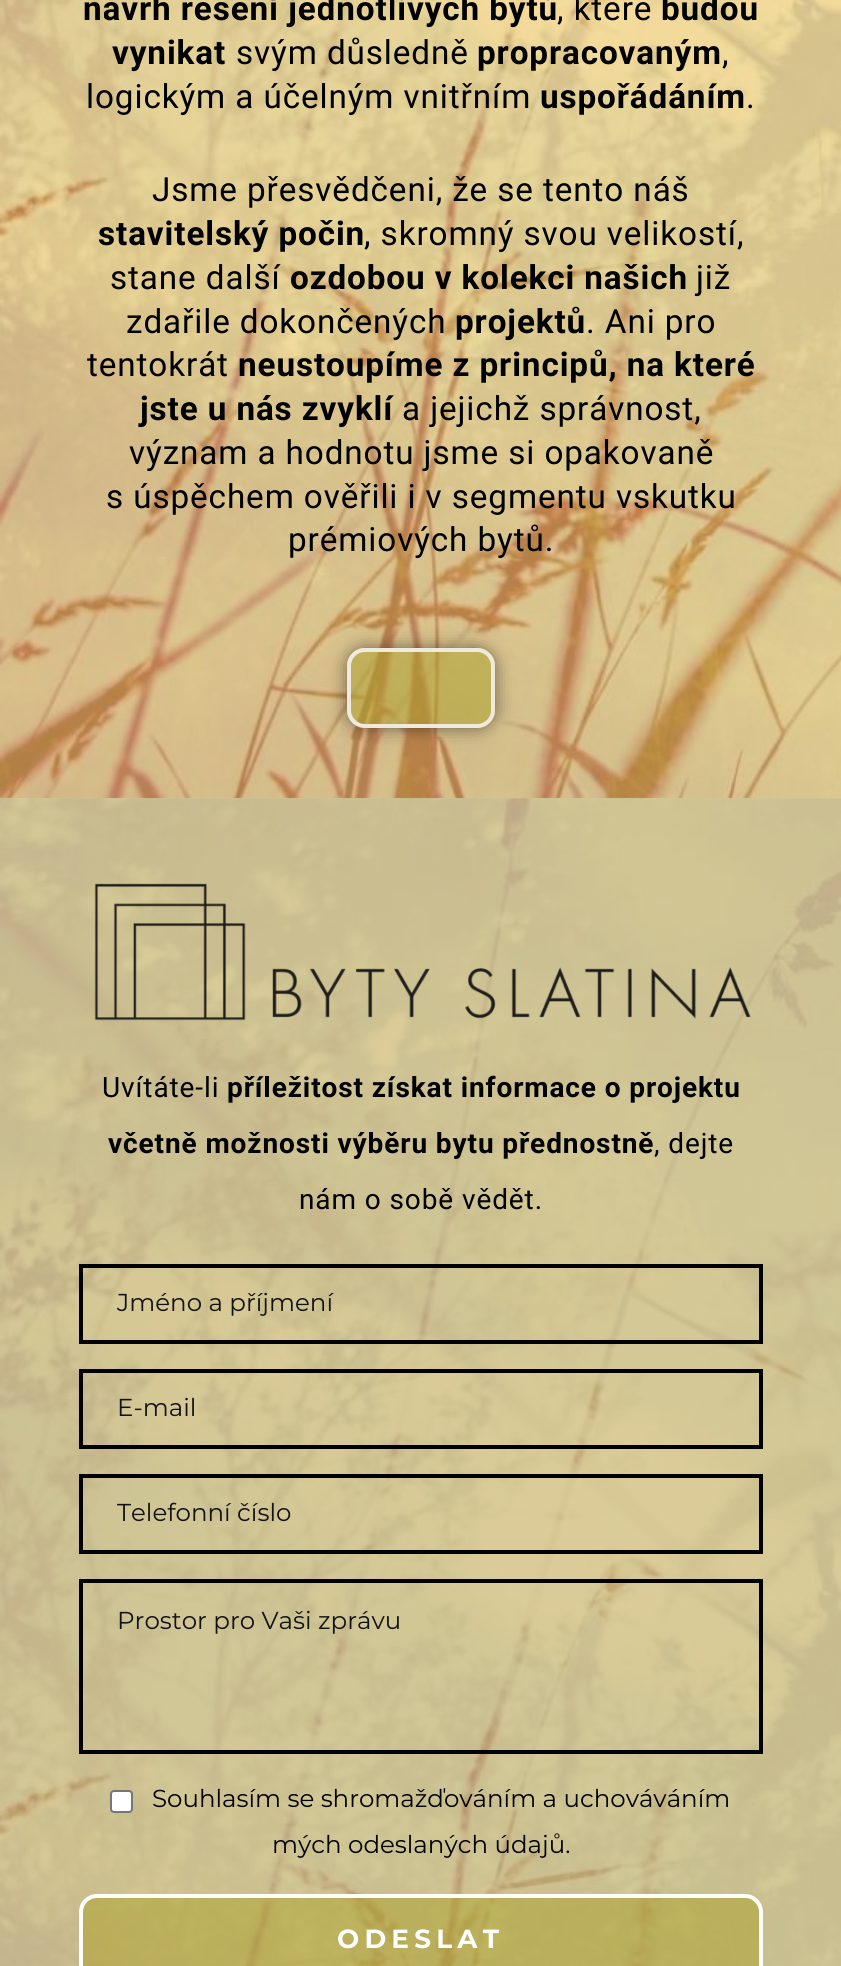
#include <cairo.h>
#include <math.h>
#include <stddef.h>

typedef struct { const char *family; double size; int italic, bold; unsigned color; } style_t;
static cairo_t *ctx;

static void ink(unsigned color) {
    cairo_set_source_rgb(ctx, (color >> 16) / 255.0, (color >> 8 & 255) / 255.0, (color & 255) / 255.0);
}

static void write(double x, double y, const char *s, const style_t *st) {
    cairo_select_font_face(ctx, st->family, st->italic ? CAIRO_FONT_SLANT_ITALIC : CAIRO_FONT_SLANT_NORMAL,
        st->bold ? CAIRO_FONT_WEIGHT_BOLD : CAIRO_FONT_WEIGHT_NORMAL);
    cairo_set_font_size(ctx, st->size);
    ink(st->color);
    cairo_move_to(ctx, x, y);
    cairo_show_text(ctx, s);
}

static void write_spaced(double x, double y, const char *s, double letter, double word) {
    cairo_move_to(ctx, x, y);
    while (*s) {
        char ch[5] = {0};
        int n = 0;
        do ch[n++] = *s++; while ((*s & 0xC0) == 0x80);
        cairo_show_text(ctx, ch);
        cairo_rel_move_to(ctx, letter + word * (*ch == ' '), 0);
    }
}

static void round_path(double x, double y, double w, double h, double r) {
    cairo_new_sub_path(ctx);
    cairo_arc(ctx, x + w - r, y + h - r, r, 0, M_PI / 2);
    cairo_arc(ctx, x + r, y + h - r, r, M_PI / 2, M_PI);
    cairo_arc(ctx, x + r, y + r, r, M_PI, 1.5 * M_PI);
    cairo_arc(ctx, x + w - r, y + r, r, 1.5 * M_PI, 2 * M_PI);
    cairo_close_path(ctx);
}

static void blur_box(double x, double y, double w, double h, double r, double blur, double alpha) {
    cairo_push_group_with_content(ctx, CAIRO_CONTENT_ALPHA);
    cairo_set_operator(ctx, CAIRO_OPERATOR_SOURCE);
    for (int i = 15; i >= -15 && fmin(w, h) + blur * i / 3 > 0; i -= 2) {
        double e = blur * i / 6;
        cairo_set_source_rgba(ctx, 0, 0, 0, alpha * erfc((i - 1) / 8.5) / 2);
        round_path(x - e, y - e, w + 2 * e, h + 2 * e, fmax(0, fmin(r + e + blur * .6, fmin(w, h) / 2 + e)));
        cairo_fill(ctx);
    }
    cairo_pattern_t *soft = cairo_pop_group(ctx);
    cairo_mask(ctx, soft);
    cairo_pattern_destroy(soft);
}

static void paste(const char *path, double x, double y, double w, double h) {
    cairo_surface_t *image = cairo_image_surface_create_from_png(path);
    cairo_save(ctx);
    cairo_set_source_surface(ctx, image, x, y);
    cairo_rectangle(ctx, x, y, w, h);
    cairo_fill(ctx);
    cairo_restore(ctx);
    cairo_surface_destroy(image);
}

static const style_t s1 = {"Montserrat", 24.5, 0, 0, 0x121212};
static const style_t s2 = {"Montserrat", 24.5, 0, 0, 0x000000};

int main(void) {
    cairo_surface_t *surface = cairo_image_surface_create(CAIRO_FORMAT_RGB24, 841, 1966);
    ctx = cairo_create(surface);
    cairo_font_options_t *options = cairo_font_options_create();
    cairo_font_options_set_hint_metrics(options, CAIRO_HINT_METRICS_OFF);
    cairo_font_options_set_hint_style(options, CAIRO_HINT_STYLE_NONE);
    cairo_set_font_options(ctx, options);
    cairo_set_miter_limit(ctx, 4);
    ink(0xffffff);
    cairo_paint(ctx);
    paste("pic1.png", 0, 0, 841, 799);
    cairo_select_font_face(ctx, "Roboto", CAIRO_FONT_SLANT_NORMAL, CAIRO_FONT_WEIGHT_BOLD);
    cairo_set_font_size(ctx, 33.25);
    ink(0x000000);
    write_spaced(83, 20, "návrh řešení jednotlivých bytů", 0.9, 0);
    cairo_select_font_face(ctx, "Roboto", CAIRO_FONT_SLANT_NORMAL, CAIRO_FONT_WEIGHT_NORMAL);
    write_spaced(557, 20, ", které", 0.9, 0);
    cairo_select_font_face(ctx, "Roboto", CAIRO_FONT_SLANT_NORMAL, CAIRO_FONT_WEIGHT_BOLD);
    write_spaced(661, 20, "budou", 0.9, 0);
    write_spaced(112, 64, "vynikat", 0.9, 0);
    cairo_select_font_face(ctx, "Roboto", CAIRO_FONT_SLANT_NORMAL, CAIRO_FONT_WEIGHT_NORMAL);
    write_spaced(236, 64, "svým důsledně", 0.9, 0);
    cairo_select_font_face(ctx, "Roboto", CAIRO_FONT_SLANT_NORMAL, CAIRO_FONT_WEIGHT_BOLD);
    write_spaced(477, 64, "propracovaným", 0.9, 0);
    cairo_select_font_face(ctx, "Roboto", CAIRO_FONT_SLANT_NORMAL, CAIRO_FONT_WEIGHT_NORMAL);
    write_spaced(722, 64, ",", 0.9, 0);
    write_spaced(86, 108, "logickým a účelným vnitřním", 0.9, 0);
    cairo_select_font_face(ctx, "Roboto", CAIRO_FONT_SLANT_NORMAL, CAIRO_FONT_WEIGHT_BOLD);
    write_spaced(540, 108, "uspořádáním", 0.9, 0);
    cairo_select_font_face(ctx, "Roboto", CAIRO_FONT_SLANT_NORMAL, CAIRO_FONT_WEIGHT_NORMAL);
    write_spaced(746, 108, ".", 0.9, 0);
    write_spaced(152, 201, "Jsme přesvědčeni, že se tento náš", 0.9, 0);
    cairo_select_font_face(ctx, "Roboto", CAIRO_FONT_SLANT_NORMAL, CAIRO_FONT_WEIGHT_BOLD);
    write_spaced(98, 245, "stavitelský počin", 0.9, 0);
    cairo_select_font_face(ctx, "Roboto", CAIRO_FONT_SLANT_NORMAL, CAIRO_FONT_WEIGHT_NORMAL);
    write_spaced(364, 245, ", skromný svou velikostí,", 0.9, 0);
    write_spaced(110, 289, "stane další", 0.9, 0);
    cairo_select_font_face(ctx, "Roboto", CAIRO_FONT_SLANT_NORMAL, CAIRO_FONT_WEIGHT_BOLD);
    write_spaced(290, 289, "ozdobou v kolekci našich", 0.9, 0);
    cairo_select_font_face(ctx, "Roboto", CAIRO_FONT_SLANT_NORMAL, CAIRO_FONT_WEIGHT_NORMAL);
    write_spaced(696, 289, "již", 0.9, 0);
    write_spaced(126, 333, "zdařile dokončených", 0.9, 0);
    cairo_select_font_face(ctx, "Roboto", CAIRO_FONT_SLANT_NORMAL, CAIRO_FONT_WEIGHT_BOLD);
    write_spaced(455, 333, "projektů", 0.9, 0);
    cairo_select_font_face(ctx, "Roboto", CAIRO_FONT_SLANT_NORMAL, CAIRO_FONT_WEIGHT_NORMAL);
    write_spaced(586, 333, ". Ani pro", 0.9, 0);
    write_spaced(87, 376, "tentokrát", 0.9, 0);
    cairo_select_font_face(ctx, "Roboto", CAIRO_FONT_SLANT_NORMAL, CAIRO_FONT_WEIGHT_BOLD);
    write_spaced(238, 376, "neustoupíme z principů, na které", 0.9, 0);
    write_spaced(140, 420, "jste u nás zvyklí", 0.9, 0);
    cairo_select_font_face(ctx, "Roboto", CAIRO_FONT_SLANT_NORMAL, CAIRO_FONT_WEIGHT_NORMAL);
    write_spaced(402, 420, "a jejichž správnost,", 0.9, 0);
    write_spaced(129, 464, "význam a hodnotu jsme si opakovaně", 0.9, 0);
    write_spaced(106, 508, "s úspěchem ověřili i v segmentu vskutku", 0.9, 0);
    write_spaced(288, 551, "prémiových bytů.", 0.9, 0);
    cairo_save(ctx);
    cairo_set_fill_rule(ctx, CAIRO_FILL_RULE_EVEN_ODD);
    cairo_new_path(ctx);
    cairo_move_to(ctx, 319, 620);
    cairo_line_to(ctx, 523, 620);
    cairo_line_to(ctx, 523, 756);
    cairo_line_to(ctx, 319, 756);
    cairo_close_path(ctx);
    cairo_move_to(ctx, 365, 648);
    cairo_line_to(ctx, 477, 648);
    cairo_curve_to(ctx, 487, 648, 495, 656, 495, 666);
    cairo_line_to(ctx, 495, 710);
    cairo_curve_to(ctx, 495, 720, 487, 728, 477, 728);
    cairo_line_to(ctx, 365, 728);
    cairo_curve_to(ctx, 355, 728, 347, 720, 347, 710);
    cairo_line_to(ctx, 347, 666);
    cairo_curve_to(ctx, 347, 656, 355, 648, 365, 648);
    cairo_close_path(ctx);
    cairo_clip(ctx);
    ink(0x000000);
    blur_box(347, 648, 148, 80, 18, 9, 0.5);
    cairo_restore(ctx);
    cairo_set_source_rgba(ctx, 0.667, 0.627, 0.157, 0.5);
    round_path(349, 650, 144, 76, 16);
    cairo_fill_preserve(ctx);
    ink(0xefe9de);
    cairo_set_line_width(ctx, 4);
    cairo_stroke(ctx);
    paste("pic2.png", 0, 798, 841, 1168);
    cairo_set_source_rgba(ctx, 0.773, 0.635, 0.247, 0.7);
    cairo_rectangle(ctx, 0, 798, 841, 1168);
    cairo_fill(ctx);
    cairo_set_source_rgba(ctx, 1, 1, 1, 0.25);
    cairo_rectangle(ctx, 0, 798, 841, 1168);
    cairo_fill(ctx);
    paste("pic3.png", 94, 883, 657, 138);
    cairo_set_font_size(ctx, 28);
    ink(0x000000);
    write_spaced(102, 1097, "Uvítáte-li", 0.9, 0);
    cairo_select_font_face(ctx, "Roboto", CAIRO_FONT_SLANT_NORMAL, CAIRO_FONT_WEIGHT_BOLD);
    write_spaced(227, 1097, "příležitost získat informace o projektu", 0.9, 0);
    write_spaced(108, 1153, "včetně možnosti výběru bytu přednostně", 0.9, 0);
    cairo_select_font_face(ctx, "Roboto", CAIRO_FONT_SLANT_NORMAL, CAIRO_FONT_WEIGHT_NORMAL);
    write_spaced(654, 1153, ", dejte", 0.9, 0);
    write_spaced(299, 1209, "nám o sobě vědět.", 0.9, 0);
    cairo_rectangle(ctx, 81, 1266, 680, 76);
    cairo_stroke(ctx);
    write(117, 1311, "Jméno a příjmení", &s1);
    cairo_rectangle(ctx, 81, 1371, 680, 76);
    ink(0x000000);
    cairo_stroke(ctx);
    write(117, 1416, "E-mail", &s1);
    cairo_rectangle(ctx, 81, 1476, 680, 76);
    ink(0x000000);
    cairo_stroke(ctx);
    write(117, 1521, "Telefonní číslo", &s1);
    cairo_rectangle(ctx, 81, 1581, 680, 171);
    ink(0x000000);
    cairo_stroke(ctx);
    write(117, 1629, "Prostor pro Vaši zprávu", &s1);
    ink(0xffffff);
    round_path(111, 1791, 21, 21, 3);
    cairo_fill_preserve(ctx);
    ink(0x767676);
    cairo_set_line_width(ctx, 2);
    cairo_stroke(ctx);
    write(152, 1807, "Souhlasím se shromažďováním a uchováváním", &s2);
    write(272, 1853, "mých odeslaných údajů.", &s2);
    cairo_set_source_rgba(ctx, 0.667, 0.627, 0.157, 0.5);
    round_path(81, 1896, 680, 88, 16);
    cairo_fill_preserve(ctx);
    ink(0xffffff);
    cairo_set_line_width(ctx, 4);
    cairo_stroke(ctx);
    cairo_select_font_face(ctx, "Montserrat", CAIRO_FONT_SLANT_NORMAL, CAIRO_FONT_WEIGHT_BOLD);
    cairo_set_font_size(ctx, 26.25);
    write_spaced(337, 1948, "ODESLAT", 5.25, 0);
    cairo_surface_write_to_png(surface, "screenshot.png");
    cairo_font_options_destroy(options);
    cairo_destroy(ctx);
    cairo_surface_destroy(surface);
    return 0;
}
